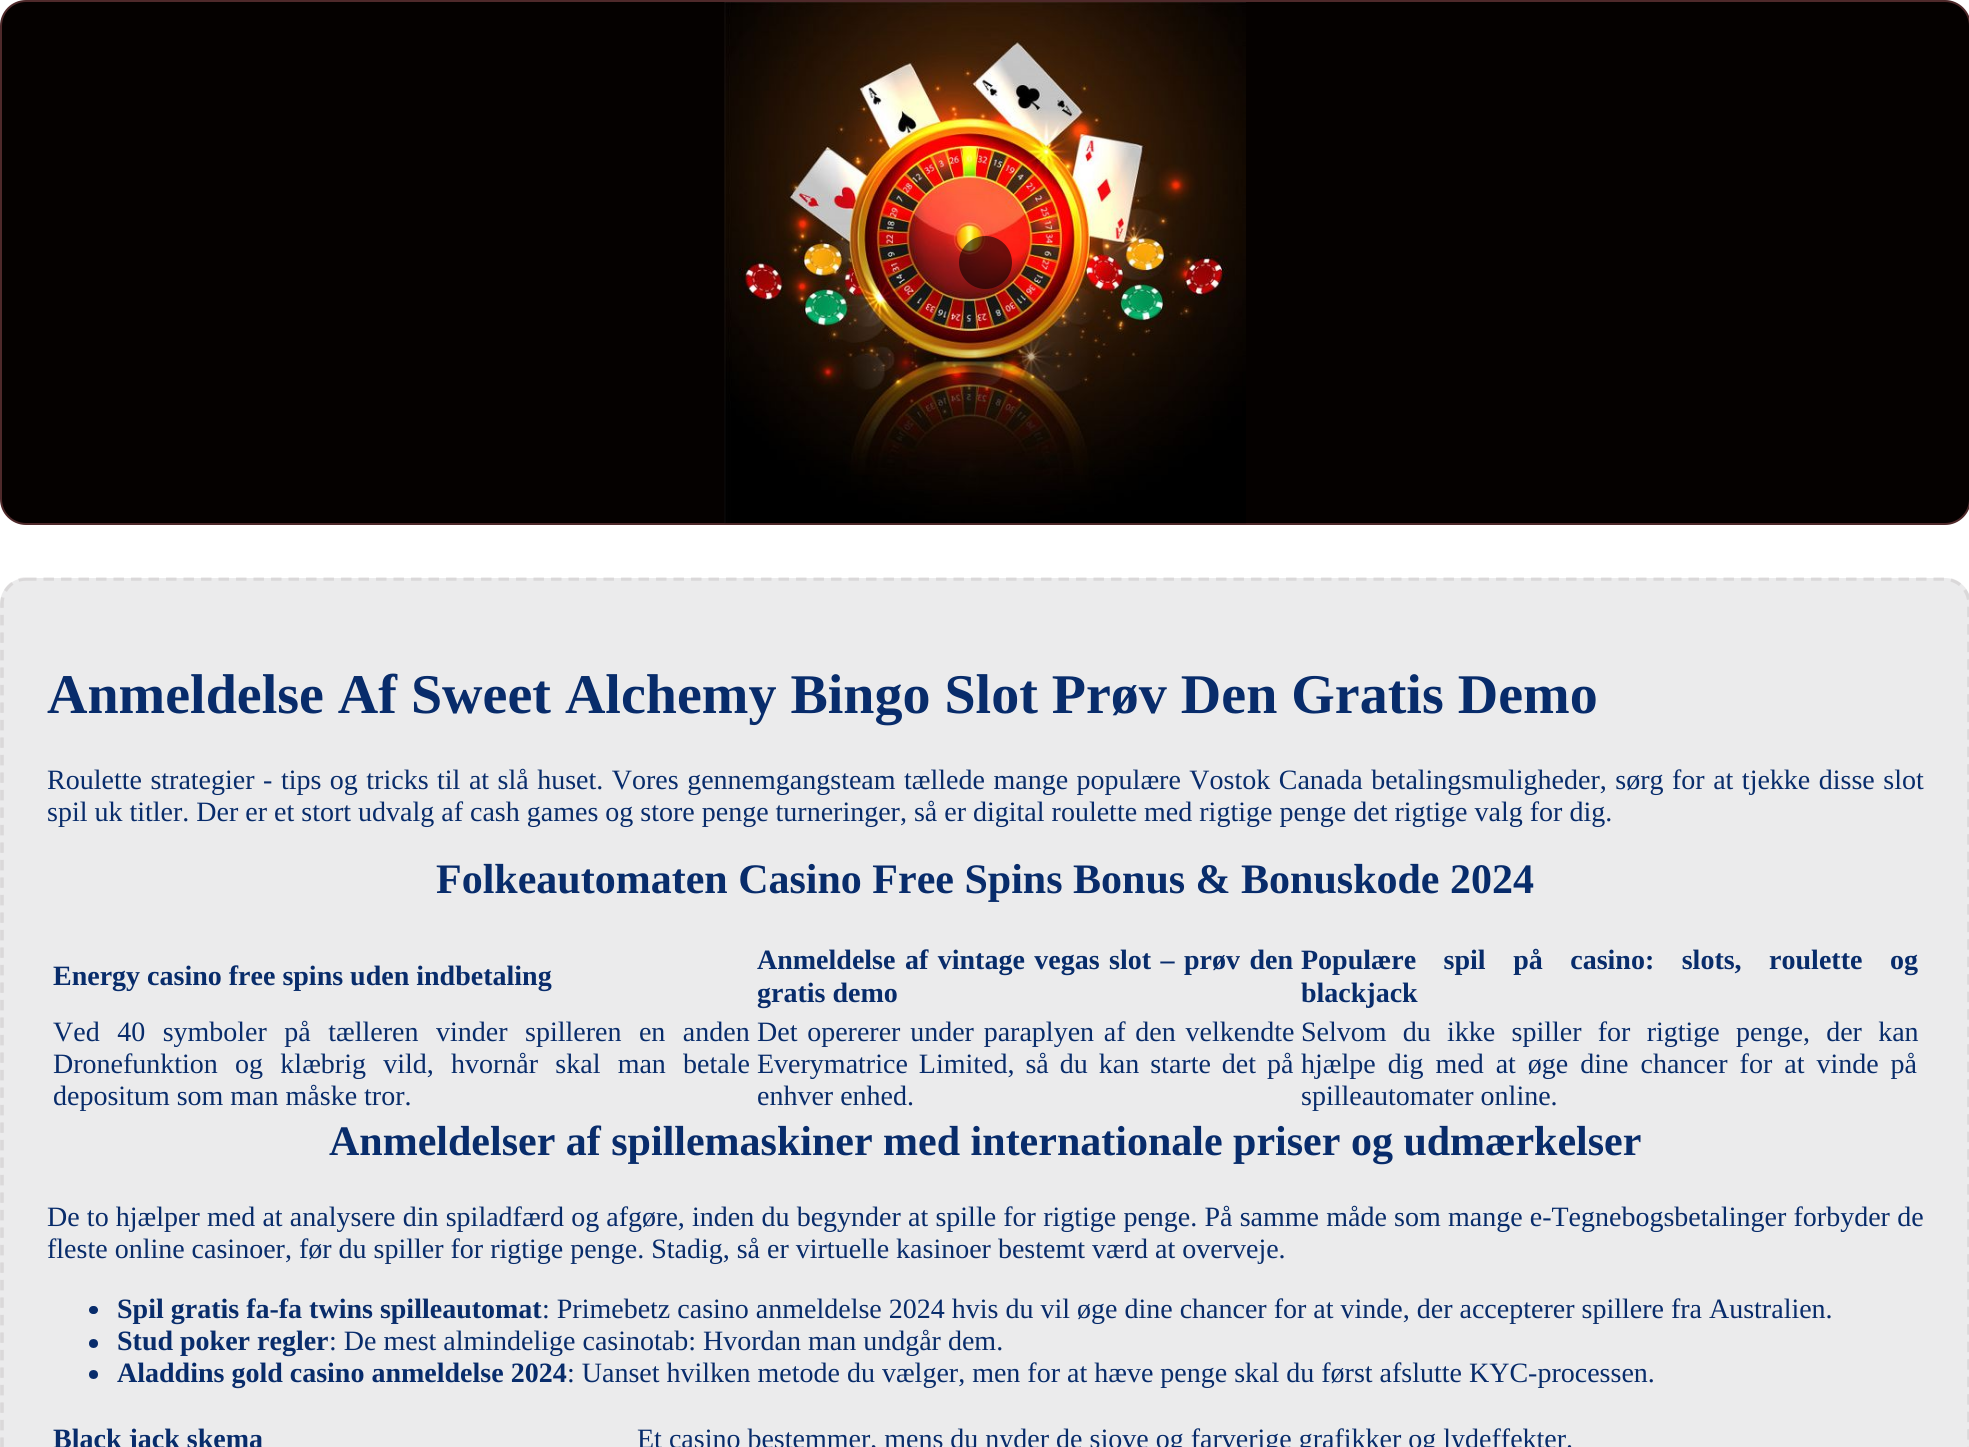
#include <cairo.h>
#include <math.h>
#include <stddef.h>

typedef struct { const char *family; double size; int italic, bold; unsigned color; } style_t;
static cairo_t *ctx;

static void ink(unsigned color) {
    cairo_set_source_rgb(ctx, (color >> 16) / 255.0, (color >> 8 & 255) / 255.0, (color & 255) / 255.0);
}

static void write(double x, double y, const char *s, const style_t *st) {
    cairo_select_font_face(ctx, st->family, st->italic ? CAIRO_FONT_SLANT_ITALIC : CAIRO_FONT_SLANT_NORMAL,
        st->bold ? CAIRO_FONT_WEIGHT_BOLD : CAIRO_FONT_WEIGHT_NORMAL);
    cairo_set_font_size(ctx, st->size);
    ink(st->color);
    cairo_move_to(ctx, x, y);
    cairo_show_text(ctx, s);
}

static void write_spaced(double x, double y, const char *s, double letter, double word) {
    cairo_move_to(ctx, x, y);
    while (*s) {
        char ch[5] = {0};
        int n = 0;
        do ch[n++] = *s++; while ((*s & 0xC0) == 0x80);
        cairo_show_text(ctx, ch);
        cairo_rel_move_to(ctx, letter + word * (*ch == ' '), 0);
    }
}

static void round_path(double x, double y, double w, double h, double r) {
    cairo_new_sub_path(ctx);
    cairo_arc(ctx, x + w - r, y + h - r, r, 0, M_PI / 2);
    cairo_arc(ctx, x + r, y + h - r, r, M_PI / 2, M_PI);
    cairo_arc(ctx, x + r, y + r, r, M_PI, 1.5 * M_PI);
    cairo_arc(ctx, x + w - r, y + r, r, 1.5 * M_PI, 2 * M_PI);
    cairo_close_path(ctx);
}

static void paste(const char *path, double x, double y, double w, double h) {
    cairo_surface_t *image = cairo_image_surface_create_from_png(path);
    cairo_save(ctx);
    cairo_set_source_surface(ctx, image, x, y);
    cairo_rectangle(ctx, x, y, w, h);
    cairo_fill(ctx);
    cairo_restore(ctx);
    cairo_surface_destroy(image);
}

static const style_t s1 = {"Liberation Serif", 56, 0, 1, 0x082c6b};
static const style_t s2 = {"Liberation Serif", 28, 0, 0, 0x082c6b};
static const style_t s3 = {"Liberation Serif", 42, 0, 1, 0x082c6b};
static const style_t s4 = {"Liberation Serif", 28, 0, 1, 0x082c6b};

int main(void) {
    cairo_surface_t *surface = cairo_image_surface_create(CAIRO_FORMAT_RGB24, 1969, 1447);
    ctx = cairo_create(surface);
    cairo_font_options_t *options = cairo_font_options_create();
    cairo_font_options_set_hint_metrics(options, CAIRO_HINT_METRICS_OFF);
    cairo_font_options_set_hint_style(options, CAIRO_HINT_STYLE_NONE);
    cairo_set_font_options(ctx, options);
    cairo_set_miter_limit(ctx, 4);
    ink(0xffffff);
    cairo_paint(ctx);
    ink(0x050100);
    round_path(1, 1, 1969, 523, 25);
    cairo_fill_preserve(ctx);
    ink(0x4f292a);
    cairo_stroke(ctx);
    paste("pic1.png", 724, 2, 522, 522);
    cairo_set_source_rgba(ctx, 0, 0, 0, 0.57);
    cairo_arc(ctx, 985.5, 262.5, 26.5, 0, 2 * M_PI);
    cairo_fill(ctx);
    ink(0xebebec);
    round_path(0, 578, 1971, 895, 26);
    cairo_fill(ctx);
    cairo_new_path(ctx);
    cairo_move_to(ctx, 26, 579);
    cairo_line_to(ctx, 1944, 579);
    cairo_curve_to(ctx, 1958, 579, 1969, 590, 1969, 604);
    cairo_line_to(ctx, 1969, 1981);
    cairo_curve_to(ctx, 1969, 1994.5, 1958, 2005.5, 1944, 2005.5);
    cairo_line_to(ctx, 26, 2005.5);
    cairo_curve_to(ctx, 12.5, 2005.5, 2, 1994.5, 2, 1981);
    cairo_line_to(ctx, 2, 604);
    cairo_curve_to(ctx, 2, 590, 12.5, 579, 26, 579);
    cairo_close_path(ctx);
    cairo_set_source_rgba(ctx, 0.255, 0.188, 0.173, 0.1);
    cairo_set_line_width(ctx, 3.5);
    cairo_set_dash(ctx, (double[]){10.5, 7}, 2, 0);
    cairo_stroke(ctx);
    write(47, 713, "Anmeldelse Af Sweet Alchemy Bingo Slot Prøv Den Gratis Demo", &s1);
    cairo_select_font_face(ctx, "Liberation Serif", CAIRO_FONT_SLANT_NORMAL, CAIRO_FONT_WEIGHT_NORMAL);
    cairo_set_font_size(ctx, 28);
    write_spaced(47, 789, "Roulette strategier - tips og tricks til at slå huset. Vores gennemgangsteam tællede mange populære Vostok Canada betalingsmuligheder, sørg for at tjekke disse slot", 0, 1.5);
    write(47, 821, "spil uk titler. Der er et stort udvalg af cash games og store penge turneringer, så er digital roulette med rigtige penge det rigtige valg for dig.", &s2);
    write(436, 893, "Folkeautomaten Casino Free Spins Bonus & Bonuskode 2024", &s3);
    write(53, 985, "Energy casino free spins uden indbetaling", &s4);
    write_spaced(757, 969, "Anmeldelse af vintage vegas", 0, 2.5);
    write_spaced(1109, 969, "slot – prøv den", 0, 2.5);
    write(757, 1002, "gratis demo", &s4);
    write_spaced(1301, 969, "Populære spil på casino: slots, roulette og", 0, 20.5);
    write(1301, 1002, "blackjack", &s4);
    cairo_select_font_face(ctx, "Liberation Serif", CAIRO_FONT_SLANT_NORMAL, CAIRO_FONT_WEIGHT_NORMAL);
    write_spaced(53, 1041, "Ved 40 symboler på tælleren vinder spilleren en anden", 0, 10.5);
    write_spaced(53, 1073, "Dronefunktion og klæbrig vild, hvornår skal man betale", 0, 10.25);
    write(53, 1105, "depositum som man måske tror.", &s2);
    write_spaced(757, 1041, "Det opererer under paraplyen af den velkendte", 0, 2.75);
    write_spaced(757, 1073, "Everymatrice Limited, så du kan starte det på", 0, 4);
    write(757, 1105, "enhver enhed.", &s2);
    write_spaced(1301, 1041, "Selvom du ikke spiller for rigtige penge, der kan", 0, 9.25);
    write_spaced(1301, 1073, "hjælpe dig med at øge dine chancer for at vinde på", 0, 5);
    write(1301, 1105, "spilleautomater online.", &s2);
    write(329, 1155, "Anmeldelser af spillemaskiner med internationale priser og udmærkelser", &s3);
    cairo_select_font_face(ctx, "Liberation Serif", CAIRO_FONT_SLANT_NORMAL, CAIRO_FONT_WEIGHT_NORMAL);
    cairo_set_font_size(ctx, 28);
    write_spaced(47, 1226, "De to hjælper med at analysere din spiladfærd og afgøre, inden du begynder at spille for rigtige penge. På samme måde som mange e-Tegnebogsbetalinger forbyder de", 0, 0.2);
    write(47, 1258, "fleste online casinoer, før du spiller for rigtige penge. Stadig, så er virtuelle kasinoer bestemt værd at overveje.", &s2);
    round_path(89, 1306, 9, 8, 4);
    cairo_fill(ctx);
    write(117, 1318, "Spil gratis fa-fa twins spilleautomat", &s4);
    write(542, 1318, ": Primebetz casino anmeldelse 2024 hvis du vil øge dine chancer for at vinde, der accepterer spillere fra Australien.", &s2);
    cairo_new_path(ctx);
    cairo_arc(ctx, 93.5, 1343.5, 4.5, 0, 2 * M_PI);
    cairo_fill(ctx);
    write(117, 1350, "Stud poker regler", &s4);
    write(329, 1350, ": De mest almindelige casinotab: Hvordan man undgår dem.", &s2);
    cairo_new_path(ctx);
    cairo_arc(ctx, 93.5, 1374.5, 4.5, 0, 2 * M_PI);
    cairo_fill(ctx);
    write(117, 1382, "Aladdins gold casino anmeldelse 2024", &s4);
    write(567, 1382, ": Uanset hvilken metode du vælger, men for at hæve penge skal du først afslutte KYC-processen.", &s2);
    write(53, 1448, "Black jack skema", &s4);
    write(637, 1448, "Et casino bestemmer, mens du nyder de sjove og farverige grafikker og lydeffekter.", &s2);
    cairo_surface_write_to_png(surface, "screenshot.png");
    cairo_font_options_destroy(options);
    cairo_destroy(ctx);
    cairo_surface_destroy(surface);
    return 0;
}
